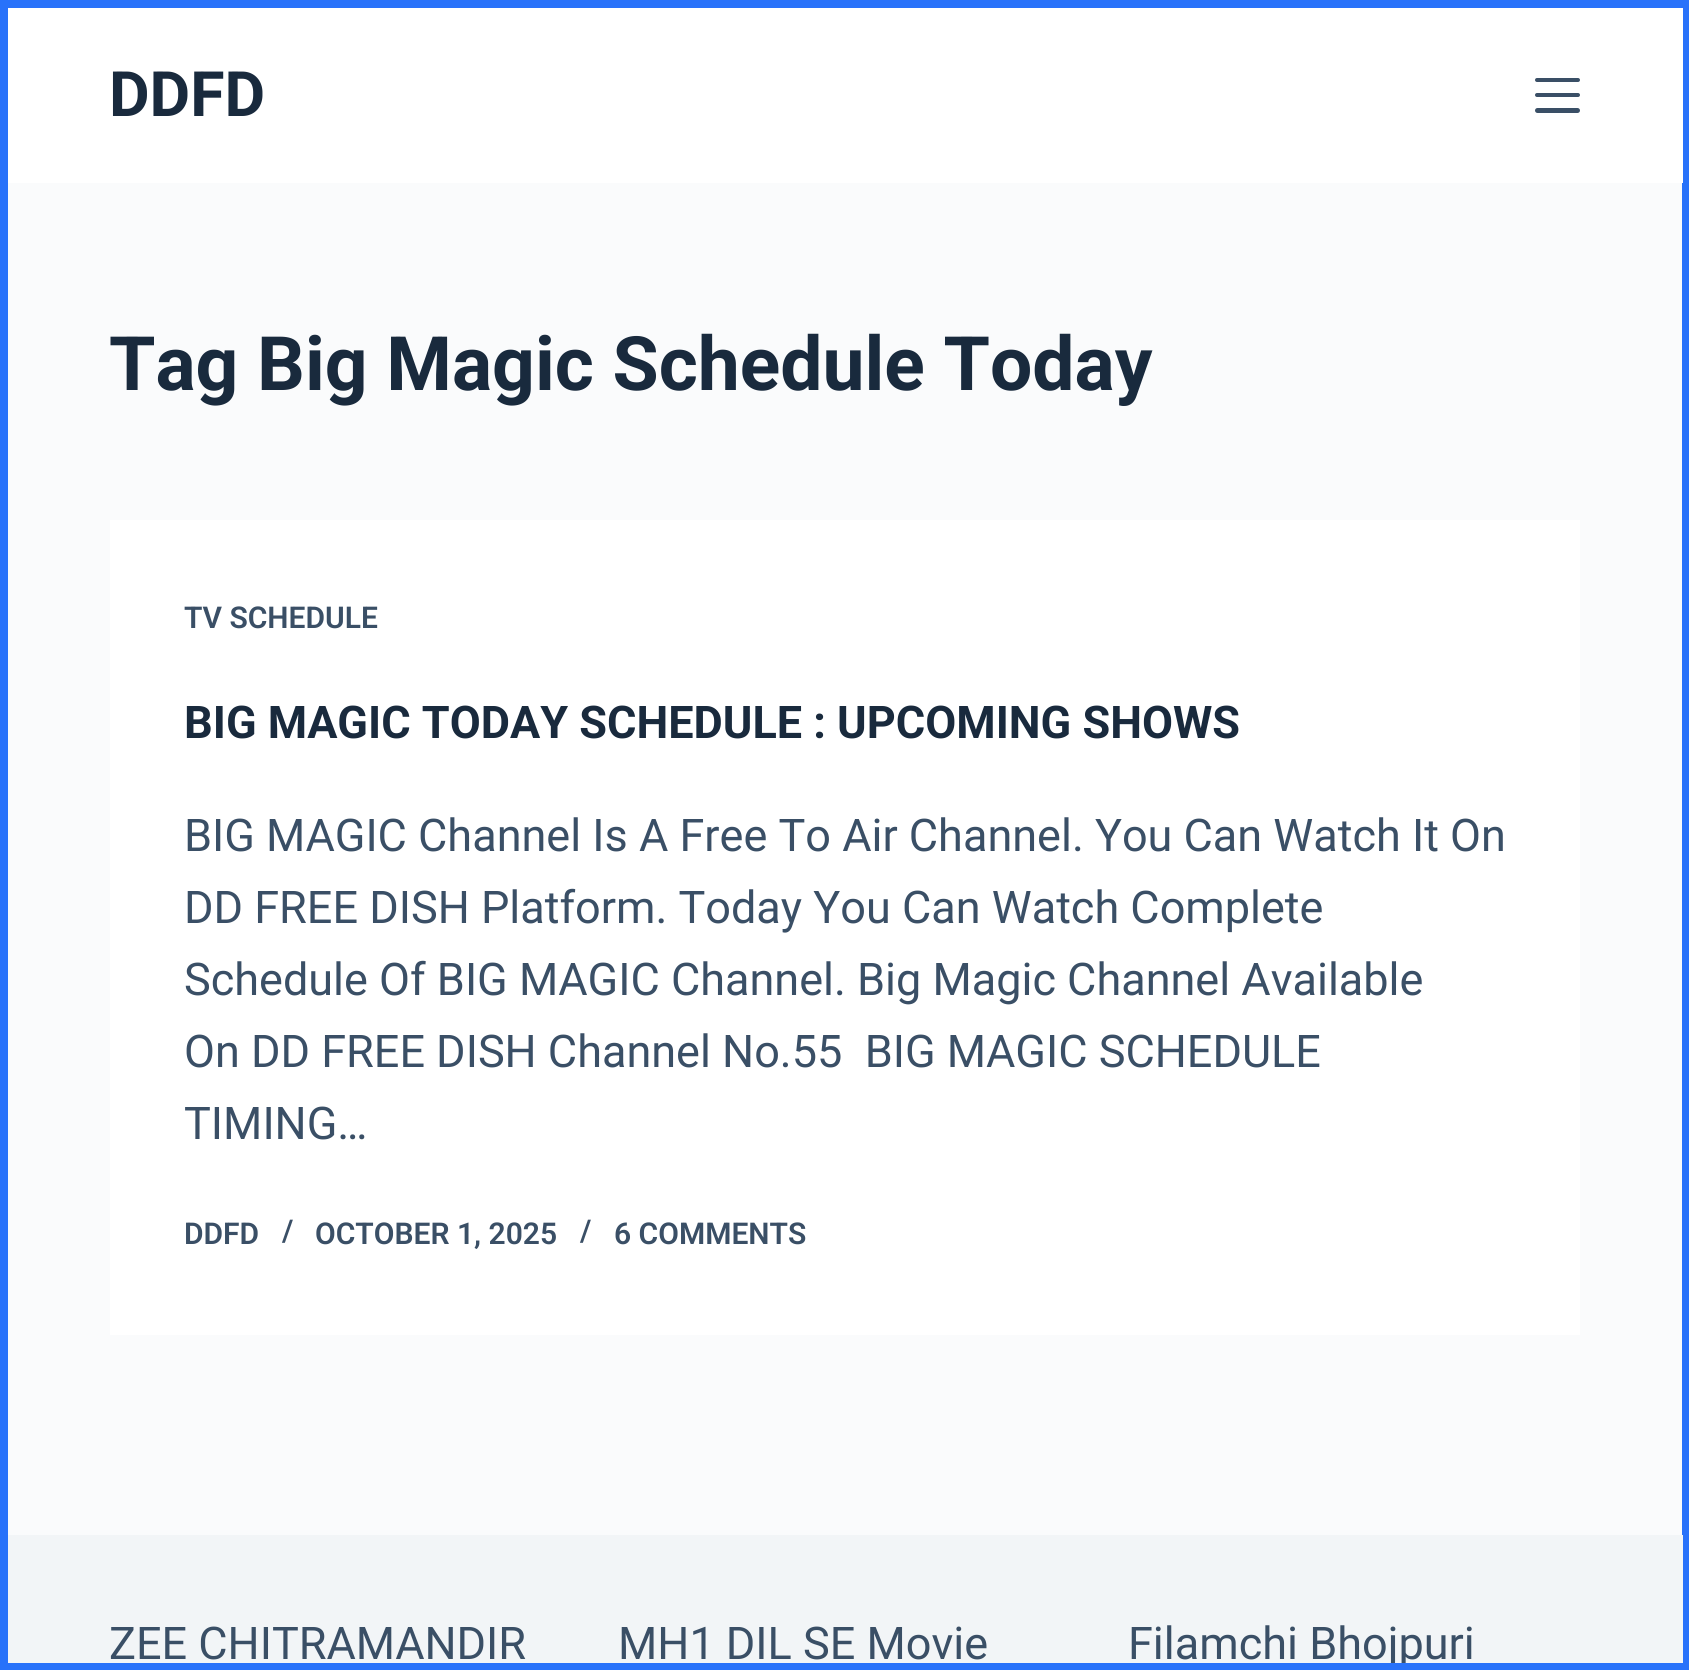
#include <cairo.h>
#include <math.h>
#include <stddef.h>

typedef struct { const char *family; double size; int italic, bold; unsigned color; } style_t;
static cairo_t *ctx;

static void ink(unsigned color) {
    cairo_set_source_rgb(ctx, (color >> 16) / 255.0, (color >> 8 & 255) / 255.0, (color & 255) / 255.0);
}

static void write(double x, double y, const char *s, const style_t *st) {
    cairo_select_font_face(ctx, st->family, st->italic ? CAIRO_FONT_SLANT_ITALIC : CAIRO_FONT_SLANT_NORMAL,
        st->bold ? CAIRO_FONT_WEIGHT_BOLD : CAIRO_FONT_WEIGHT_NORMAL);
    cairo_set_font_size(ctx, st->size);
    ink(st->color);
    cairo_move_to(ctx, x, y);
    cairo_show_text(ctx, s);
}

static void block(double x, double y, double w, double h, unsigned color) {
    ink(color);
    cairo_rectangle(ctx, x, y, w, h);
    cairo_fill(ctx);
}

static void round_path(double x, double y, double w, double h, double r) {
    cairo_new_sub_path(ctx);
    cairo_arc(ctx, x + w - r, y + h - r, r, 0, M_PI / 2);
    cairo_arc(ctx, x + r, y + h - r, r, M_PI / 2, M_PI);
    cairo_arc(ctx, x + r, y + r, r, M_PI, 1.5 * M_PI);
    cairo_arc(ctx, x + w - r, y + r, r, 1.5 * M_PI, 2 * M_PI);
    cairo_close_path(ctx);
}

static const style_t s1 = {"Roboto", 62.5, 0, 1, 0x192a3d};
static const style_t s2 = {"Roboto", 75, 0, 1, 0x192a3d};
static const style_t s3 = {"Roboto SemiBold", 30, 0, 0, 0x3a4f66};
static const style_t s4 = {"Roboto", 45, 0, 1, 0x192a3d};
static const style_t s5 = {"Roboto", 45, 0, 0, 0x3a4f66};

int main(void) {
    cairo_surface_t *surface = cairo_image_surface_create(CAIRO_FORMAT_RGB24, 1689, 1670);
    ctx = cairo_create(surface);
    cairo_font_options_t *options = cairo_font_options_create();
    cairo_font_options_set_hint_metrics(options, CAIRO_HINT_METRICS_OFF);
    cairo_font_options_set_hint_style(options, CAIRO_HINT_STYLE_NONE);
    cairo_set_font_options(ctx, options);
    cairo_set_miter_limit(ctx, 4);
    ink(0xfafbfc);
    cairo_paint(ctx);
    cairo_rectangle(ctx, 4, 4, 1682, 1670);
    ink(0x2872fa);
    cairo_set_line_width(ctx, 8);
    cairo_stroke(ctx);
    block(8, 8, 1675, 175, 0xffffff);
    write(109, 116, "DDFD", &s1);
    ink(0x3a4f66);
    round_path(1535, 78, 45, 4, 2);
    cairo_fill(ctx);
    round_path(1535, 93, 45, 4, 2);
    cairo_fill(ctx);
    round_path(1535, 108, 45, 5, 2.5);
    cairo_fill(ctx);
    write(109, 390, "Tag Big Magic Schedule Today", &s2);
    block(110, 520, 1470, 815, 0xffffff);
    write(184, 628, "TV SCHEDULE", &s3);
    write(184, 738, "BIG MAGIC TODAY SCHEDULE : UPCOMING SHOWS", &s4);
    write(184, 851, "BIG MAGIC Channel Is A Free To Air Channel. You Can Watch It On", &s5);
    write(184, 923, "DD FREE DISH Platform. Today You Can Watch Complete", &s5);
    write(184, 995, "Schedule Of BIG MAGIC Channel. Big Magic Channel Available", &s5);
    write(184, 1067, "On DD FREE DISH Channel No.55  BIG MAGIC SCHEDULE", &s5);
    write(184, 1139, "TIMING…", &s5);
    write(184, 1244, "DDFD", &s3);
    write(282, 1241, "/", &s3);
    write(315, 1244, "OCTOBER 1, 2025", &s3);
    write(580, 1241, "/", &s3);
    write(614, 1244, "6 COMMENTS", &s3);
    block(8, 1535, 1675, 128, 0xf2f5f7);
    write(109, 1659, "ZEE CHITRAMANDIR", &s5);
    write(618, 1659, "MH1 DIL SE Movie", &s5);
    write(1128, 1659, "Filamchi Bhojpuri", &s5);
    block(0, 1663, 1689, 7, 0x2872fa);
    cairo_surface_write_to_png(surface, "screenshot.png");
    cairo_font_options_destroy(options);
    cairo_destroy(ctx);
    cairo_surface_destroy(surface);
    return 0;
}
